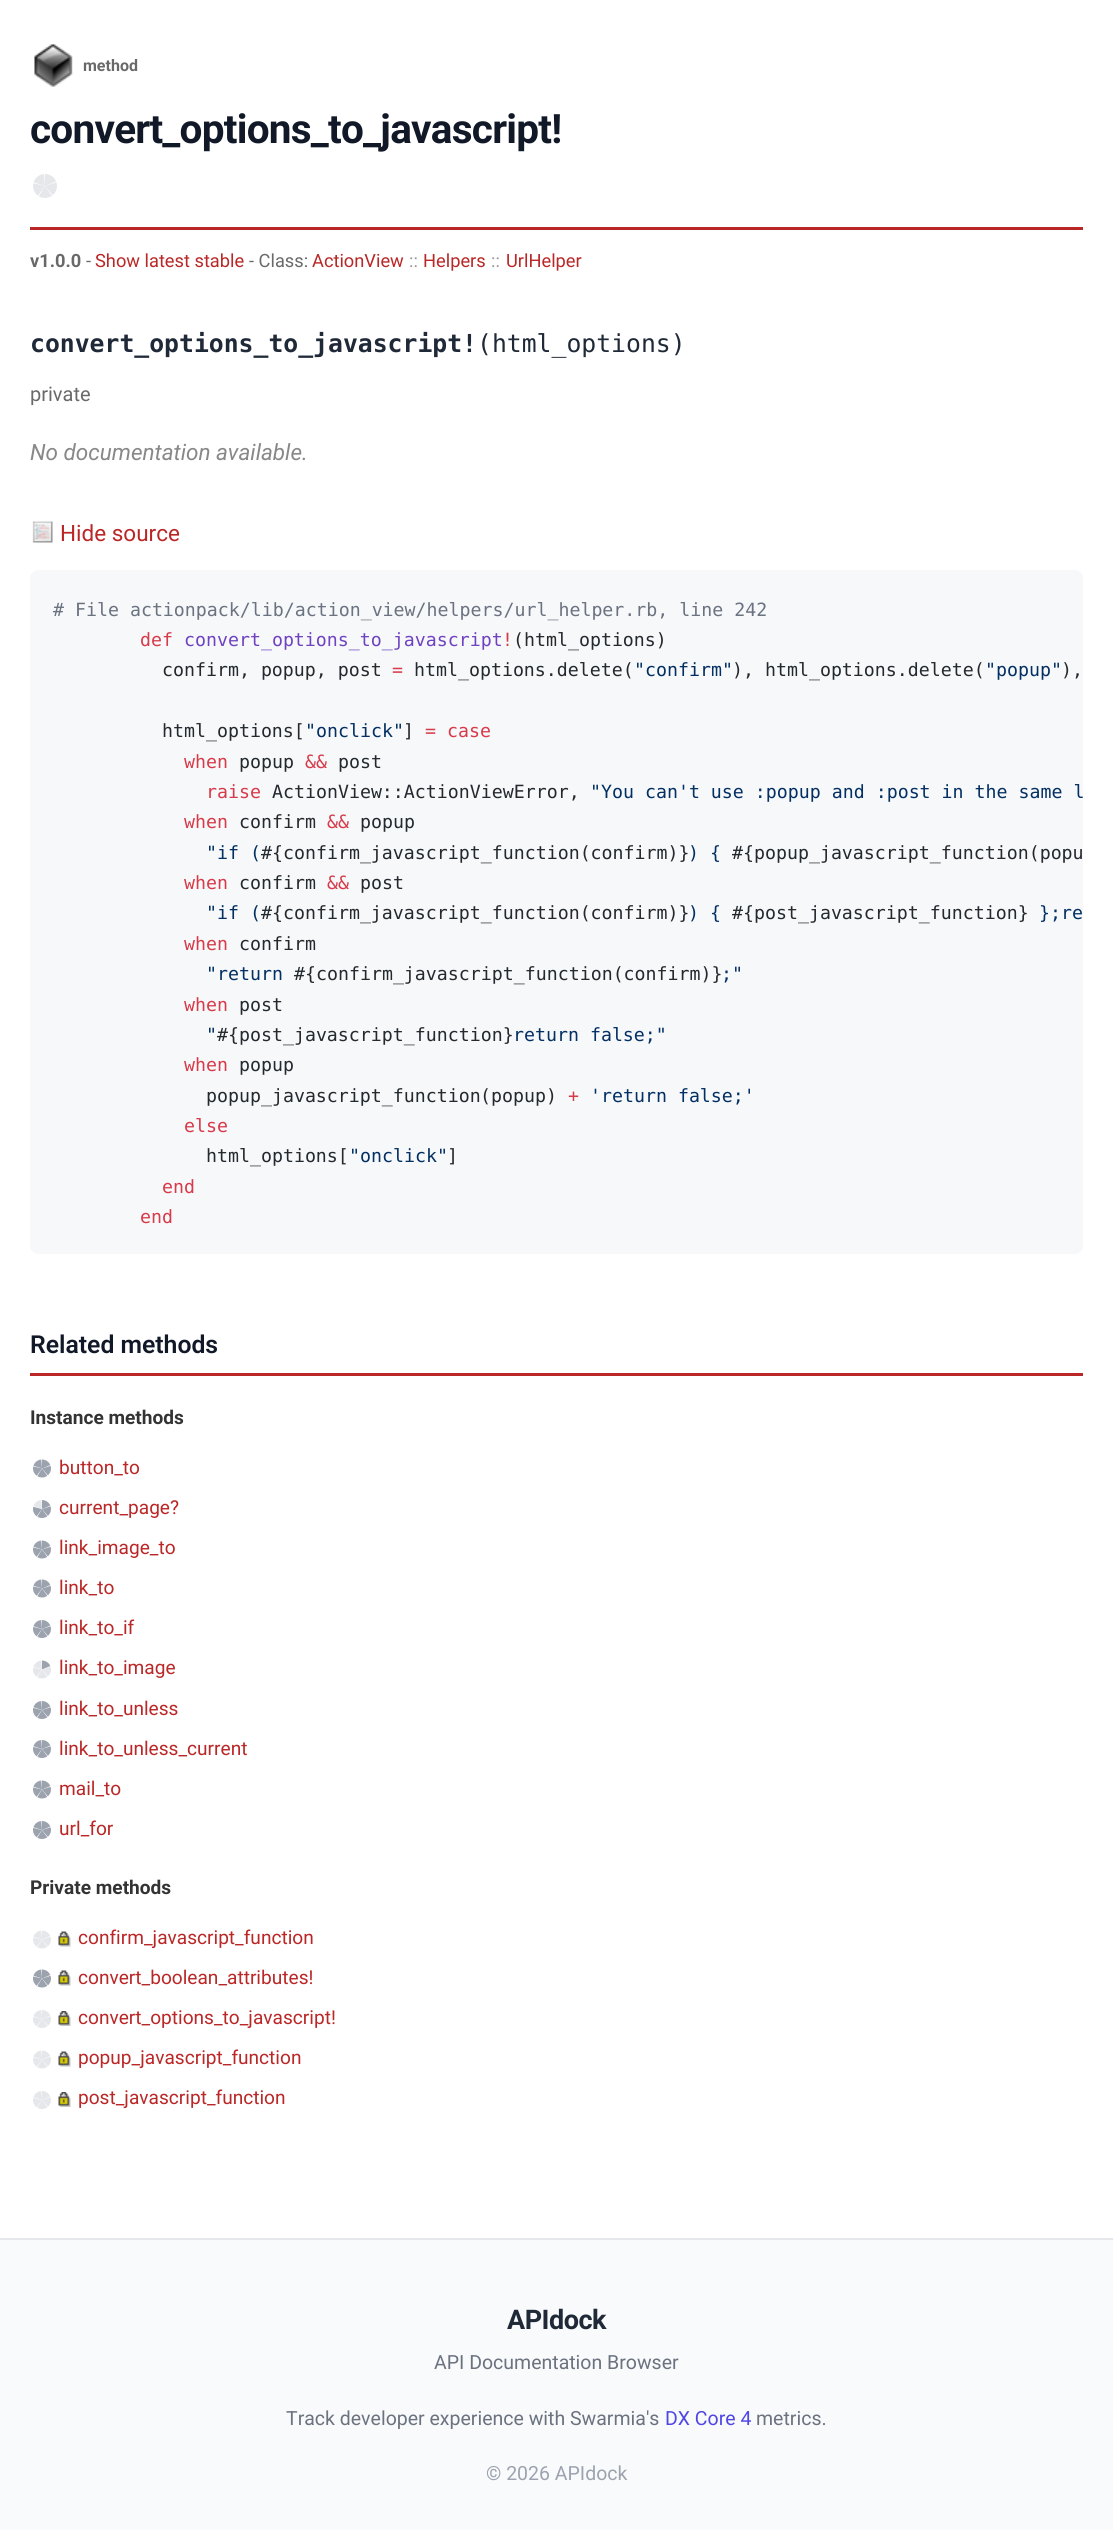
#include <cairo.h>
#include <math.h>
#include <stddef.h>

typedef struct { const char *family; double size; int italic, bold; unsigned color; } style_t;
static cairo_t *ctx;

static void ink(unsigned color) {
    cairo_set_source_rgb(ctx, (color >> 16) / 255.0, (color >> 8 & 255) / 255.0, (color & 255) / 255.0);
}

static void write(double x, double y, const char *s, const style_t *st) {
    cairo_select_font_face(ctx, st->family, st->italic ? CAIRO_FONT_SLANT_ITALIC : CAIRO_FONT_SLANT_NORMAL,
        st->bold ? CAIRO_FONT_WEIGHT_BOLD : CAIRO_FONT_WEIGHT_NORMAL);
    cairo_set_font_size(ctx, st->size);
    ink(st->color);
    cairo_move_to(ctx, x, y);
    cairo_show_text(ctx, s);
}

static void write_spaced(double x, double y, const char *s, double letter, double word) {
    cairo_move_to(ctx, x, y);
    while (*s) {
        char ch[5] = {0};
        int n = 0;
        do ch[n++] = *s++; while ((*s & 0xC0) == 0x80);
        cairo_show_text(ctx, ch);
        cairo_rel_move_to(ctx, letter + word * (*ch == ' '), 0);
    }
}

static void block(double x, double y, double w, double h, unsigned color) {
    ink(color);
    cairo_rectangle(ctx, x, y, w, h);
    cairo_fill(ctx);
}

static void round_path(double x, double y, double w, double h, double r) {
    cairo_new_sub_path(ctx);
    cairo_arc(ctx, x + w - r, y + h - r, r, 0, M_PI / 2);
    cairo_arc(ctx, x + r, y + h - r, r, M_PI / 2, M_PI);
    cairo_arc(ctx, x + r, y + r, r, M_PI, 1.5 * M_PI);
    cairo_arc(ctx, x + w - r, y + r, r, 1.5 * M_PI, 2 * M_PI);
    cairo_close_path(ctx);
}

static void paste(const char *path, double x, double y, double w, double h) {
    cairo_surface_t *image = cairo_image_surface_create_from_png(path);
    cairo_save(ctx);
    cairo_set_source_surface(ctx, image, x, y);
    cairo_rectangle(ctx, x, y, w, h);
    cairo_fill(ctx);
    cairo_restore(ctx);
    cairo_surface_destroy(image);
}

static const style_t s1 = {"Roboto", 16, 0, 1, 0x696969};
static const style_t s2 = {"Roboto", 18.25, 0, 1, 0x696969};
static const style_t s3 = {"Roboto", 18.25, 0, 0, 0x696969};
static const style_t s4 = {"Roboto", 18.25, 0, 0, 0xba2727};
static const style_t s5 = {"Roboto", 18.25, 0, 0, 0x999999};
static const style_t s6 = {"DejaVu Sans Mono", 24.75, 0, 1, 0x1f2937};
static const style_t s7 = {"DejaVu Sans Mono", 24.75, 0, 0, 0x1f2937};
static const style_t s8 = {"Roboto", 20, 0, 0, 0x696969};
static const style_t s9 = {"Roboto", 22.5, 1, 0, 0x888888};
static const style_t s10 = {"Roboto", 22.5, 0, 0, 0xba2727};
static const style_t s11 = {"DejaVu Sans Mono", 18.25, 0, 0, 0x6b7280};
static const style_t s12 = {"DejaVu Sans Mono", 18.25, 0, 0, 0xd73a49};
static const style_t s13 = {"DejaVu Sans Mono", 18.25, 0, 0, 0x6f42c1};
static const style_t s14 = {"DejaVu Sans Mono", 18.25, 0, 0, 0x24292e};
static const style_t s15 = {"DejaVu Sans Mono", 18.25, 0, 0, 0x032f62};
static const style_t s16 = {"Roboto SemiBold", 24.75, 0, 0, 0x111827};
static const style_t s17 = {"Roboto", 19.1, 0, 1, 0x333333};
static const style_t s18 = {"Roboto", 19.1, 0, 0, 0xba2727};
static const style_t s19 = {"Roboto", 19.5, 0, 0, 0x6b7280};
static const style_t s20 = {"Roboto", 19.5, 0, 0, 0x4f46e5};
static const style_t s21 = {"Roboto", 19.5, 0, 0, 0x9ca3af};

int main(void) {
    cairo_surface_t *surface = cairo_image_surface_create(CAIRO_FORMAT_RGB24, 1113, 2530);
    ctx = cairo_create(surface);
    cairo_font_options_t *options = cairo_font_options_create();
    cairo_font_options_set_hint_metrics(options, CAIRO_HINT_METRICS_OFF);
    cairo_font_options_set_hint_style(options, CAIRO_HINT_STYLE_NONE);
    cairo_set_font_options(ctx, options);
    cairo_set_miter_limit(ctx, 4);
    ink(0xffffff);
    cairo_paint(ctx);
    block(30, 227, 1053, 3, 0xba2727);
    paste("pic1.png", 34, 44, 39, 43);
    write(83, 71, "method", &s1);
    cairo_set_font_size(ctx, 40.5);
    ink(0x111827);
    write_spaced(30, 143, "convert_options_to_javascript!", -0.75, 0);
    paste("pic2.png", 33, 174, 24, 24);
    write(30, 267, "v1.0.0", &s2);
    write(86, 267, "-", &s3);
    write(95, 267, "Show latest stable", &s4);
    write(249, 267, "- Class:", &s3);
    write(312, 267, "ActionView", &s4);
    write(409, 267, "::", &s5);
    write(423, 267, "Helpers", &s4);
    write(491, 267, "::", &s5);
    write(506, 267, "UrlHelper", &s4);
    write(30, 352, "convert_options_to_javascript!", &s6);
    write(477, 352, "(html_options)", &s7);
    write(30, 401, "private", &s8);
    write(30, 460, "No documentation available.", &s9);
    paste("pic3.png", 32, 521, 21, 22);
    write(60, 541, "Hide source", &s10);
    ink(0xf6f8fa);
    round_path(30, 570, 1053, 684, 8);
    cairo_fill(ctx);
    write(53, 616, "# File actionpack/lib/action_view/helpers/url_helper.rb, line 242", &s11);
    write(140, 646, "def", &s12);
    write(184, 646, "convert_options_to_javascript", &s13);
    write(502, 646, "!", &s12);
    write(513, 646, "(html_options)", &s14);
    write(162, 676, "confirm, popup, post", &s14);
    write(392, 676, "=", &s12);
    write(414, 676, "html_options.delete(", &s14);
    write(634, 676, "\"confirm\"", &s15);
    write(732, 676, "), html_options.delete(", &s14);
    write(985, 676, "\"popup\"", &s15);
    write(1061, 676, "),", &s14);
    write(162, 737, "html_options[", &s14);
    write(305, 737, "\"onclick\"", &s15);
    write(403, 737, "]", &s14);
    write(425, 737, "= case", &s12);
    write(184, 768, "when", &s12);
    write(239, 768, "popup", &s14);
    write(305, 768, "&&", &s12);
    write(338, 768, "post", &s14);
    write(206, 798, "raise", &s12);
    write(272, 798, "ActionView::ActionViewError,", &s14);
    write(590, 798, "\"You can't use :popup and :post in the same l", &s15);
    write(184, 828, "when", &s12);
    write(239, 828, "confirm", &s14);
    write(327, 828, "&&", &s12);
    write(360, 828, "popup", &s14);
    write(206, 859, "\"if (", &s15);
    write(261, 859, "#{confirm_javascript_function(confirm)}", &s14);
    write(688, 859, ") {", &s15);
    write(732, 859, "#{popup_javascript_function(popu", &s14);
    write(184, 889, "when", &s12);
    write(239, 889, "confirm", &s14);
    write(327, 889, "&&", &s12);
    write(360, 889, "post", &s14);
    write(206, 919, "\"if (", &s15);
    write(261, 919, "#{confirm_javascript_function(confirm)}", &s14);
    write(688, 919, ") {", &s15);
    write(732, 919, "#{post_javascript_function}", &s14);
    write(1039, 919, "};re", &s15);
    write(184, 950, "when", &s12);
    write(239, 950, "confirm", &s14);
    write(206, 980, "\"return", &s15);
    write(294, 980, "#{confirm_javascript_function(confirm)}", &s14);
    write(721, 980, ";\"", &s15);
    write(184, 1011, "when", &s12);
    write(239, 1011, "post", &s14);
    write(206, 1041, "\"", &s15);
    write(217, 1041, "#{post_javascript_function}", &s14);
    write(513, 1041, "return false;\"", &s15);
    write(184, 1071, "when", &s12);
    write(239, 1071, "popup", &s14);
    write(206, 1102, "popup_javascript_function", &s14);
    write(480, 1102, "(popup)", &s14);
    write(568, 1102, "+", &s12);
    write(590, 1102, "'return false;'", &s15);
    write(184, 1132, "else", &s12);
    write(206, 1162, "html_options[", &s14);
    write(349, 1162, "\"onclick\"", &s15);
    write(447, 1162, "]", &s14);
    write(162, 1193, "end", &s12);
    write(140, 1223, "end", &s12);
    block(30, 1373, 1053, 3, 0xba2727);
    write(30, 1353, "Related methods", &s16);
    write(30, 1424, "Instance methods", &s17);
    paste("pic4.png", 33, 1459, 18, 19);
    write(59, 1474, "button_to", &s18);
    paste("pic5.png", 33, 1500, 18, 18);
    write(59, 1514, "current_page?", &s18);
    paste("pic4.png", 33, 1540, 18, 19);
    write(59, 1554, "link_image_to", &s18);
    paste("pic4.png", 33, 1579, 18, 19);
    write(59, 1594, "link_to", &s18);
    paste("pic6.png", 33, 1620, 18, 18);
    write(59, 1634, "link_to_if", &s18);
    paste("pic7.png", 33, 1660, 18, 19);
    write(59, 1674, "link_to_image", &s18);
    paste("pic6.png", 33, 1701, 18, 18);
    write(59, 1715, "link_to_unless", &s18);
    paste("pic6.png", 33, 1740, 18, 18);
    write(59, 1755, "link_to_unless_current", &s18);
    paste("pic4.png", 33, 1780, 18, 19);
    write(59, 1795, "mail_to", &s18);
    paste("pic6.png", 33, 1821, 18, 18);
    write(59, 1835, "url_for", &s18);
    write(30, 1894, "Private methods", &s17);
    paste("pic8.png", 33, 1930, 18, 19);
    paste("pic9.png", 58, 1931, 13, 16);
    write(78, 1944, "confirm_javascript_function", &s18);
    paste("pic4.png", 33, 1969, 18, 19);
    paste("pic9.png", 58, 1970, 13, 16);
    write(78, 1984, "convert_boolean_attributes!", &s18);
    paste("pic10.png", 33, 2010, 18, 18);
    paste("pic11.png", 58, 2011, 13, 15);
    write(78, 2024, "convert_options_to_javascript!", &s18);
    paste("pic8.png", 33, 2050, 18, 19);
    paste("pic9.png", 58, 2051, 13, 16);
    write(78, 2064, "popup_javascript_function", &s18);
    paste("pic10.png", 33, 2091, 18, 18);
    paste("pic11.png", 58, 2092, 13, 15);
    write(78, 2104, "post_javascript_function", &s18);
    block(0, 2240, 1113, 290, 0xf9fafb);
    block(0, 2238, 1113, 2, 0xe5e7eb);
    cairo_select_font_face(ctx, "Roboto", CAIRO_FONT_SLANT_NORMAL, CAIRO_FONT_WEIGHT_BOLD);
    cairo_set_font_size(ctx, 27);
    ink(0x1f2937);
    write_spaced(507, 2329, "APIdock", -0.5, 0);
    write(434, 2369, "API Documentation Browser", &s19);
    write(286, 2425, "Track developer experience with Swarmia's", &s19);
    write(665, 2425, "DX Core 4", &s20);
    write(756, 2425, "metrics.", &s19);
    write(486, 2480, "© 2026 APIdock", &s21);
    cairo_surface_write_to_png(surface, "screenshot.png");
    cairo_font_options_destroy(options);
    cairo_destroy(ctx);
    cairo_surface_destroy(surface);
    return 0;
}
